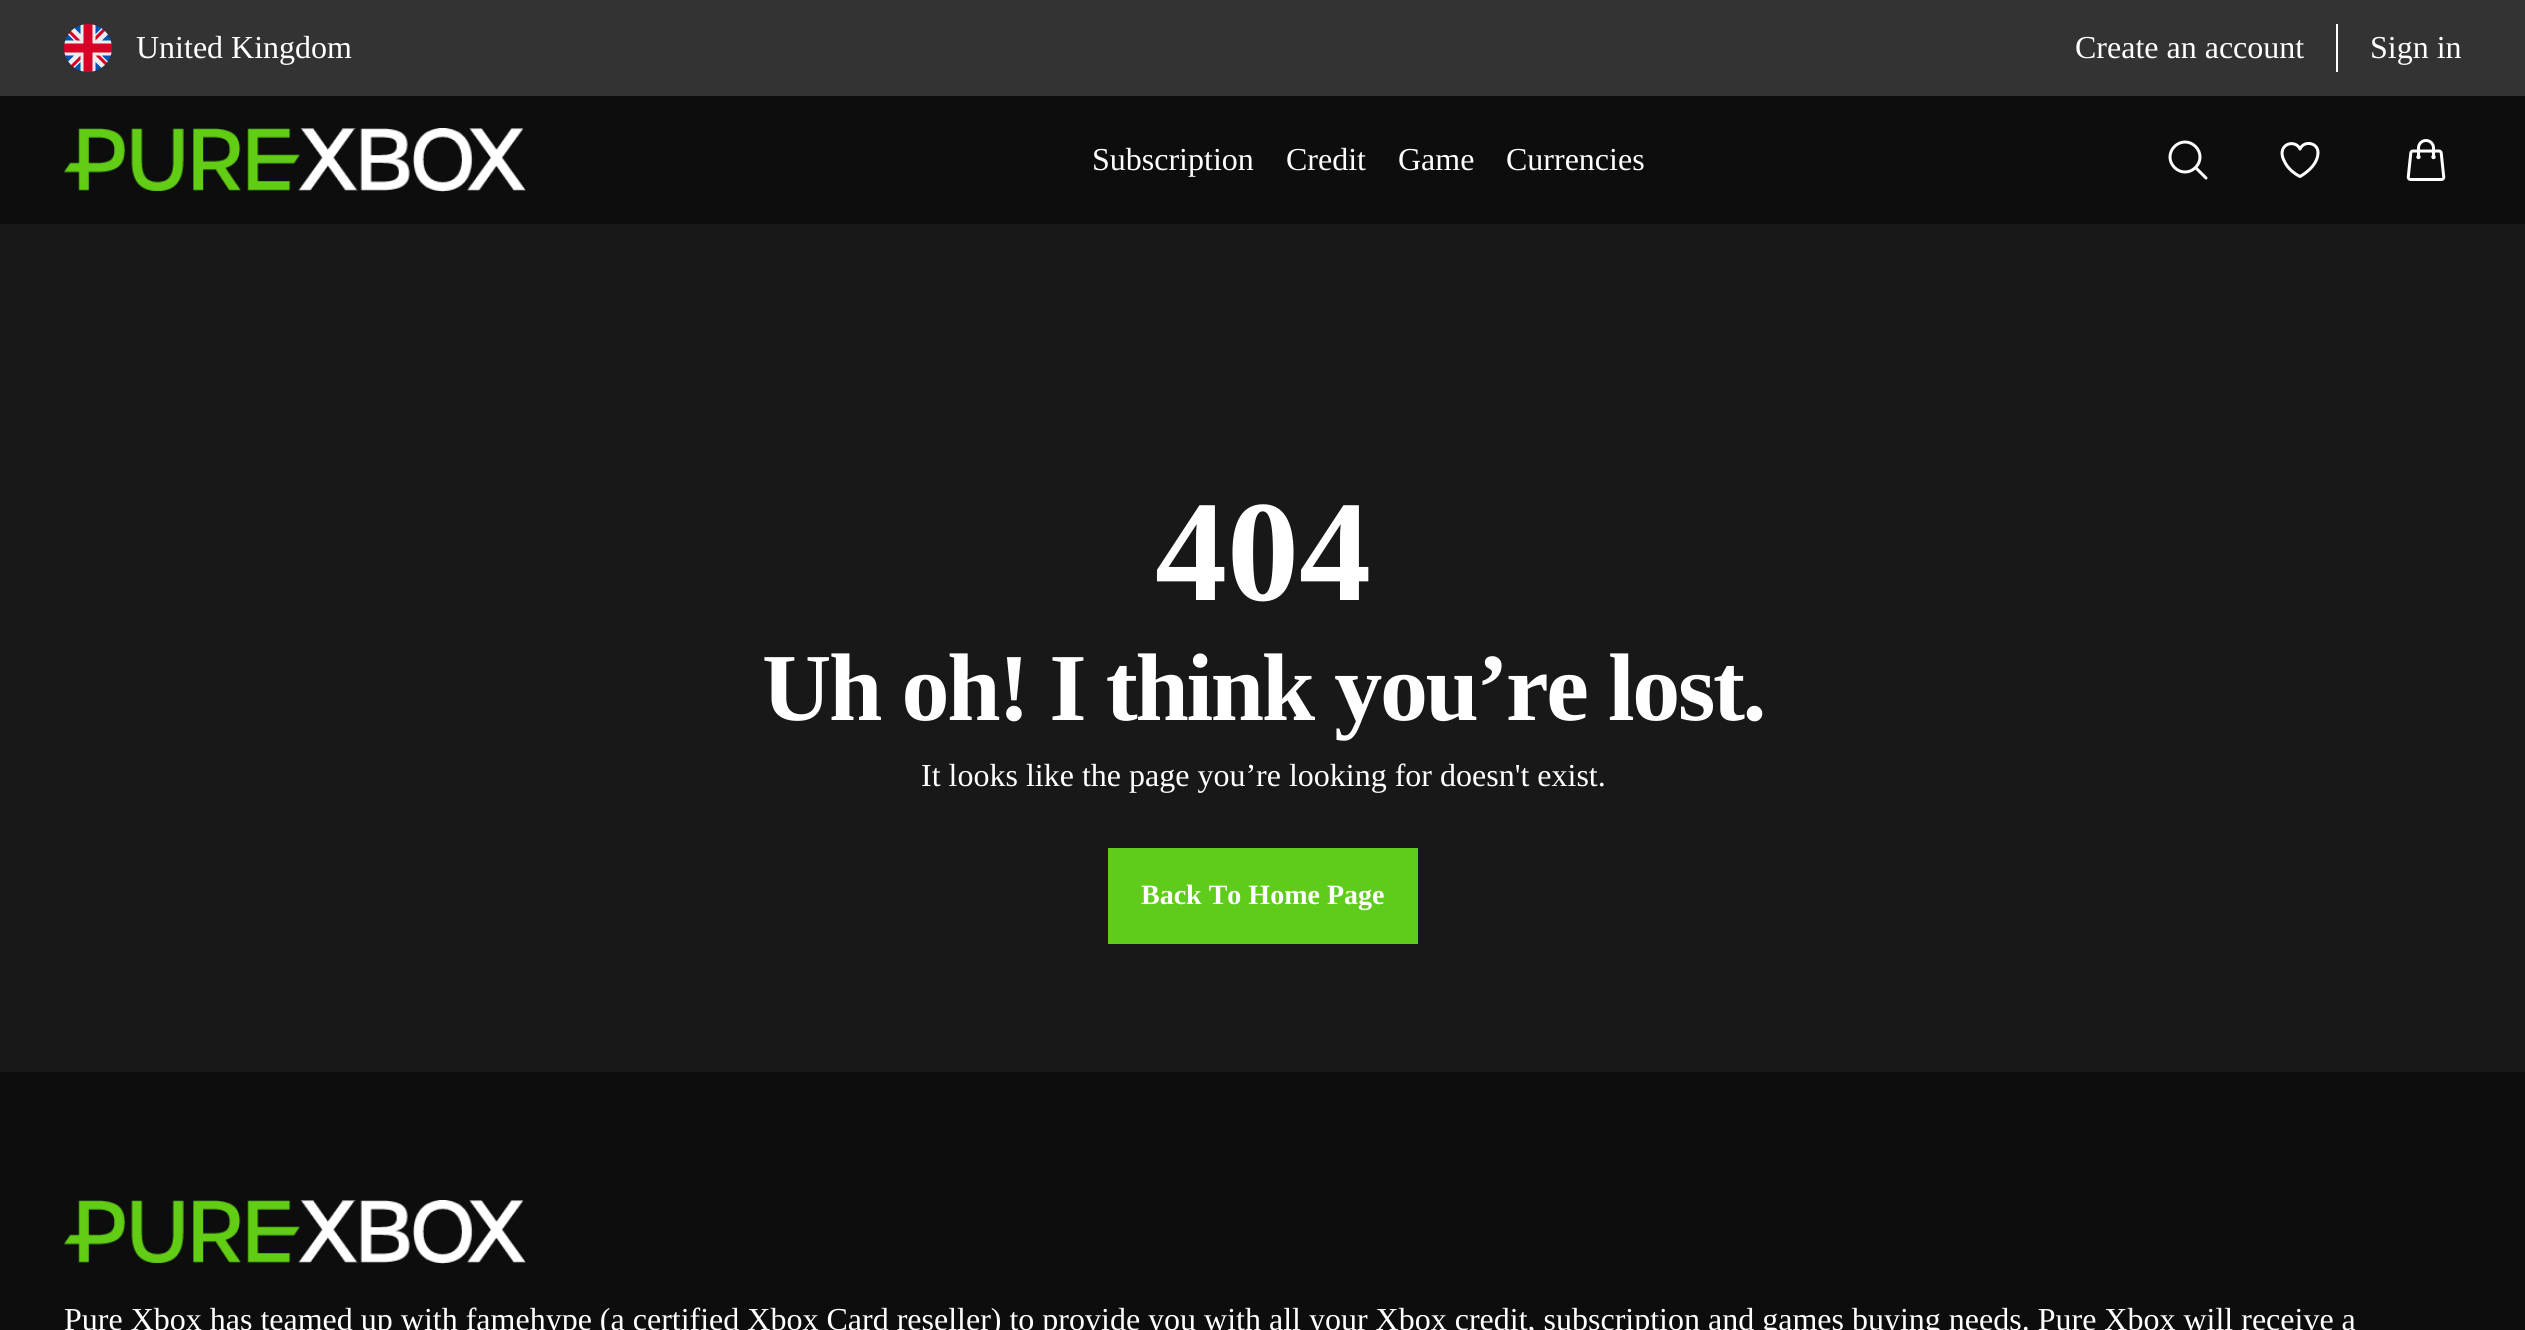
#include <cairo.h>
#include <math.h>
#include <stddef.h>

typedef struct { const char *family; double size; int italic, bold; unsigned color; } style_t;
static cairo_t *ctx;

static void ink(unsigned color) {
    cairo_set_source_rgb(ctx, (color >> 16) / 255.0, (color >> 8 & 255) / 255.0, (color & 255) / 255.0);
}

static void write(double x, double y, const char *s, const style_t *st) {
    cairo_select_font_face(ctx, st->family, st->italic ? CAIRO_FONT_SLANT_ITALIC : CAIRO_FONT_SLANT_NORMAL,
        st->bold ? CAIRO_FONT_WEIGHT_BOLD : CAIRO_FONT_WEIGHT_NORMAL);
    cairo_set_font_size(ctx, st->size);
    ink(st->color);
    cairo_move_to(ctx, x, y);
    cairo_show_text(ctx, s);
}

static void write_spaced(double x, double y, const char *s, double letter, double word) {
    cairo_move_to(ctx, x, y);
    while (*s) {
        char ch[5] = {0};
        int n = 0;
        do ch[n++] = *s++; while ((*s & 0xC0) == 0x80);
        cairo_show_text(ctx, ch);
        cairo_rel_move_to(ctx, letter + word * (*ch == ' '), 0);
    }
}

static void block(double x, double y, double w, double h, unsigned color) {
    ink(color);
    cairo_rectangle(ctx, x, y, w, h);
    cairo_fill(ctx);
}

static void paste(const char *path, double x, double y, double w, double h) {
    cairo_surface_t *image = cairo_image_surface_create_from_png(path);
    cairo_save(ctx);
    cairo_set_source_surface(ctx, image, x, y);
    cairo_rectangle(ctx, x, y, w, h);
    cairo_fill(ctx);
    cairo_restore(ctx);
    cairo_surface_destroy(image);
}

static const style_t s1 = {"Liberation Serif", 32, 0, 0, 0xffffff};
static const style_t s2 = {"Liberation Serif", 144, 0, 1, 0xffffff};
static const style_t s3 = {"Liberation Serif", 28, 0, 1, 0xffffff};

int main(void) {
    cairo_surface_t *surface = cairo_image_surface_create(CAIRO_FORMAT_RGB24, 2525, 1330);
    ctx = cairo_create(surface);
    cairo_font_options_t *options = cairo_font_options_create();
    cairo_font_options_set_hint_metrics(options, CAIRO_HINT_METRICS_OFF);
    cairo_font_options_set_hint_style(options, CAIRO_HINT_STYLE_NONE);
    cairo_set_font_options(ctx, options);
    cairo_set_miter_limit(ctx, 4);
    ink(0x181818);
    cairo_paint(ctx);
    block(0, 0, 2525, 96, 0x333333);
    paste("pic1.png", 64, 24, 48, 48);
    write(136, 58, "United Kingdom", &s1);
    write(2075, 58, "Create an account", &s1);
    block(2336, 24, 2, 48, 0xffffff);
    write(2370, 58, "Sign in", &s1);
    block(0, 96, 2525, 128, 0x0d0d0d);
    paste("pic2.png", 64, 128, 462, 64);
    write(1092, 170, "Subscription", &s1);
    write(1286, 170, "Credit", &s1);
    write(1398, 170, "Game", &s1);
    write(1506, 170, "Currencies", &s1);
    cairo_new_path(ctx);
    cairo_move_to(ctx, 2206, 178);
    cairo_line_to(ctx, 2195.5, 167.5);
    cairo_move_to(ctx, 2195.5, 167.5);
    cairo_curve_to(ctx, 2201.5, 161.5, 2201.5, 152.5, 2195.5, 146.5);
    cairo_curve_to(ctx, 2189.5, 140.5, 2180.5, 140.5, 2174.5, 146.5);
    cairo_curve_to(ctx, 2168.5, 152.5, 2168.5, 161.5, 2174.5, 167.5);
    cairo_curve_to(ctx, 2180.5, 173.5, 2189.5, 173.5, 2195.5, 167.5);
    cairo_close_path(ctx);
    cairo_set_line_width(ctx, 3);
    cairo_set_line_cap(ctx, CAIRO_LINE_CAP_ROUND);
    cairo_set_line_join(ctx, CAIRO_LINE_JOIN_ROUND);
    cairo_stroke(ctx);
    cairo_new_path(ctx);
    cairo_move_to(ctx, 2318, 152.5);
    cairo_curve_to(ctx, 2318, 142.5, 2304, 140, 2300, 149);
    cairo_curve_to(ctx, 2295, 138, 2274.5, 144.5, 2285, 162.5);
    cairo_curve_to(ctx, 2288, 168.5, 2294, 173.5, 2300, 176.5);
    cairo_curve_to(ctx, 2300, 176.5, 2318, 167, 2318, 152.5);
    cairo_close_path(ctx);
    cairo_stroke(ctx);
    paste("pic3.png", 2406, 139, 40, 42);
    write(1155, 600, "404", &s2);
    cairo_set_font_size(ctx, 96);
    write_spaced(762, 720, "Uh oh! I think you’re lost.", -2.4, 0);
    write(921, 786, "It looks like the page you’re looking for doesn't exist.", &s1);
    block(1108, 848, 310, 96, 0x5fcc1b);
    write(1141, 904, "Back To Home Page", &s3);
    block(0, 1072, 2525, 258, 0x0d0d0d);
    paste("pic4.png", 64, 1200, 462, 64);
    write(64, 1330, "Pure Xbox has teamed up with famehype (a certified Xbox Card reseller) to provide you with all your Xbox credit, subscription and games buying needs. Pure Xbox will receive a", &s1);
    cairo_surface_write_to_png(surface, "screenshot.png");
    cairo_font_options_destroy(options);
    cairo_destroy(ctx);
    cairo_surface_destroy(surface);
    return 0;
}
